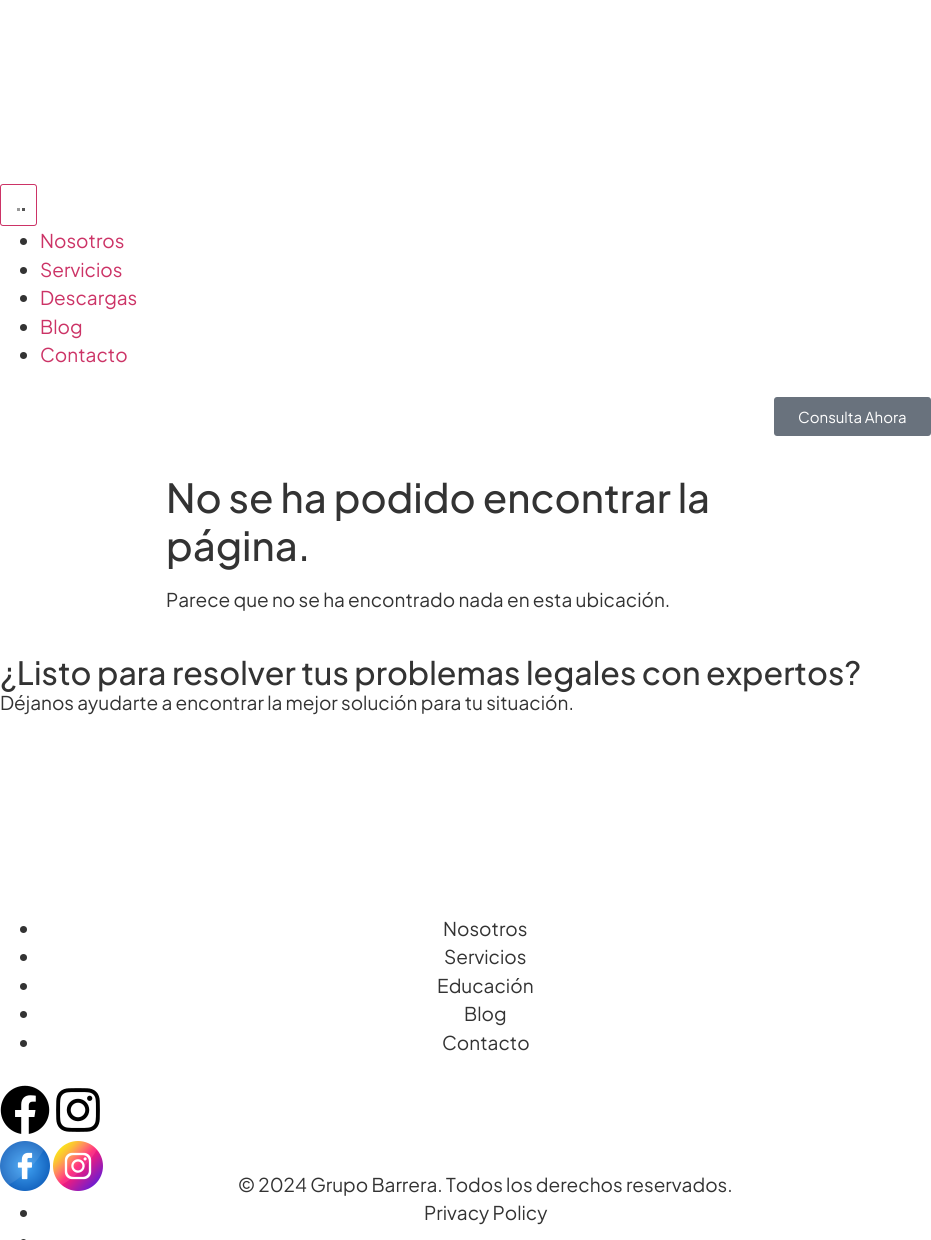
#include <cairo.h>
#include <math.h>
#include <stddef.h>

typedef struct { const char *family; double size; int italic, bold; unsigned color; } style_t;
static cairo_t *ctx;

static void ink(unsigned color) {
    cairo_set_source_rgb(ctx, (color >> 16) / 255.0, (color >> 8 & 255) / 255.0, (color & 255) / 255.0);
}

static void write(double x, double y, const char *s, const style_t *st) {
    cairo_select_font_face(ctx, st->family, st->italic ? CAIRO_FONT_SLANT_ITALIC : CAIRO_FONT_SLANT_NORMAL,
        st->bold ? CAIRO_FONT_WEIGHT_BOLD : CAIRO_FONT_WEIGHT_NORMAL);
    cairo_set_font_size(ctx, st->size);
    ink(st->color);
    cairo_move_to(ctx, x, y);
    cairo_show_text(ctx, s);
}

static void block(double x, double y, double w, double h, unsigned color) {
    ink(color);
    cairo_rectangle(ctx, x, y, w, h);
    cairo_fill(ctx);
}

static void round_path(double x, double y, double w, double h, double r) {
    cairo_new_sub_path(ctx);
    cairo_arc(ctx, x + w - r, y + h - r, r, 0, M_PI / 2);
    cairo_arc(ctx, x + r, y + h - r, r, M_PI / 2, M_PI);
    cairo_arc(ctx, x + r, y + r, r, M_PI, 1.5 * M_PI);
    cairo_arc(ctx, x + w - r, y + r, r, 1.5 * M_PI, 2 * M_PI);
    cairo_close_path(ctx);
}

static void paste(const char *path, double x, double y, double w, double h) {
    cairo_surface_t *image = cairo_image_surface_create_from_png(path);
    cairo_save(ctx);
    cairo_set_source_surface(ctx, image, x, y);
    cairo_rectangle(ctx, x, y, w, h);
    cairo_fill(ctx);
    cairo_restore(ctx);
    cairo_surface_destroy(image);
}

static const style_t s1 = {"Plus Jakarta Sans", 19, 0, 0, 0xcc3366};
static const style_t s2 = {"Plus Jakarta Sans", 15, 0, 0, 0xffffff};
static const style_t s3 = {"Plus Jakarta Sans Medium", 40, 0, 0, 0x333333};
static const style_t s4 = {"Plus Jakarta Sans", 19, 0, 0, 0x333333};
static const style_t s5 = {"Plus Jakarta Sans Medium", 32, 0, 0, 0x333333};

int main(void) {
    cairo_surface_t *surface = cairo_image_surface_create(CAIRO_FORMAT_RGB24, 931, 1240);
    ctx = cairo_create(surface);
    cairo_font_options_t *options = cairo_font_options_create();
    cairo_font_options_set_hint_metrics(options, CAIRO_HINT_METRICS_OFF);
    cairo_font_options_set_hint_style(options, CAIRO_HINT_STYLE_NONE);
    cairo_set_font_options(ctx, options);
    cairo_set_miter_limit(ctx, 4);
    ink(0xffffff);
    cairo_paint(ctx);
    round_path(0.5, 184.5, 36, 41, 2.5);
    ink(0xcc3366);
    cairo_set_line_width(ctx, 1);
    cairo_stroke(ctx);
    block(17, 208, 3, 3, 0x999999);
    block(22, 208, 3, 3, 0x545454);
    ink(0x333333);
    cairo_arc(ctx, 23.5, 241.5, 3.5, 0, 2 * M_PI);
    cairo_fill(ctx);
    write(40, 248, "Nosotros", &s1);
    ink(0x333333);
    cairo_new_path(ctx);
    cairo_arc(ctx, 23.5, 270.5, 3.5, 0, 2 * M_PI);
    cairo_fill(ctx);
    write(40, 277, "Servicios", &s1);
    ink(0x333333);
    cairo_new_path(ctx);
    cairo_arc(ctx, 23.5, 298.5, 3.5, 0, 2 * M_PI);
    cairo_fill(ctx);
    write(40, 305, "Descargas", &s1);
    ink(0x333333);
    cairo_new_path(ctx);
    cairo_arc(ctx, 23.5, 327.5, 3.5, 0, 2 * M_PI);
    cairo_fill(ctx);
    write(40, 334, "Blog", &s1);
    ink(0x333333);
    cairo_new_path(ctx);
    cairo_arc(ctx, 23.5, 355.5, 3.5, 0, 2 * M_PI);
    cairo_fill(ctx);
    write(40, 362, "Contacto", &s1);
    ink(0x69727d);
    round_path(774, 397, 157, 39, 3);
    cairo_fill(ctx);
    write(798, 423, "Consulta Ahora", &s2);
    write(166, 513, "No se ha podido encontrar la", &s3);
    write(166, 561, "página.", &s3);
    write(166, 607, "Parece que no se ha encontrado nada en esta ubicación.", &s4);
    write(0, 685, "¿Listo para resolver tus problemas legales con expertos?", &s5);
    write(0, 710, "Déjanos ayudarte a encontrar la mejor solución para tu situación.", &s4);
    cairo_new_path(ctx);
    cairo_arc(ctx, 23.5, 929.5, 3.5, 0, 2 * M_PI);
    cairo_fill(ctx);
    write(443, 936, "Nosotros", &s4);
    cairo_new_path(ctx);
    cairo_arc(ctx, 23.5, 957.5, 3.5, 0, 2 * M_PI);
    cairo_fill(ctx);
    write(444, 964, "Servicios", &s4);
    cairo_new_path(ctx);
    cairo_arc(ctx, 23.5, 986.5, 3.5, 0, 2 * M_PI);
    cairo_fill(ctx);
    write(437, 993, "Educación", &s4);
    cairo_new_path(ctx);
    cairo_arc(ctx, 23.5, 1014.5, 3.5, 0, 2 * M_PI);
    cairo_fill(ctx);
    write(464, 1021, "Blog", &s4);
    cairo_new_path(ctx);
    cairo_arc(ctx, 23.5, 1043.5, 3.5, 0, 2 * M_PI);
    cairo_fill(ctx);
    write(442, 1050, "Contacto", &s4);
    paste("pic1.png", 0, 1085, 50, 49);
    paste("pic2.png", 56, 1088, 44, 44);
    paste("pic3.png", 0, 1141, 50, 50);
    paste("pic4.png", 53, 1141, 50, 50);
    write(238, 1192, "© 2024 Grupo Barrera. Todos los derechos reservados.", &s4);
    cairo_new_path(ctx);
    cairo_arc(ctx, 23.5, 1213.5, 3.5, 0, 2 * M_PI);
    cairo_fill(ctx);
    write(424, 1220, "Privacy Policy", &s4);
    round_path(20, 1239, 7, 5, 3.5);
    cairo_fill(ctx);
    cairo_surface_write_to_png(surface, "screenshot.png");
    cairo_font_options_destroy(options);
    cairo_destroy(ctx);
    cairo_surface_destroy(surface);
    return 0;
}
